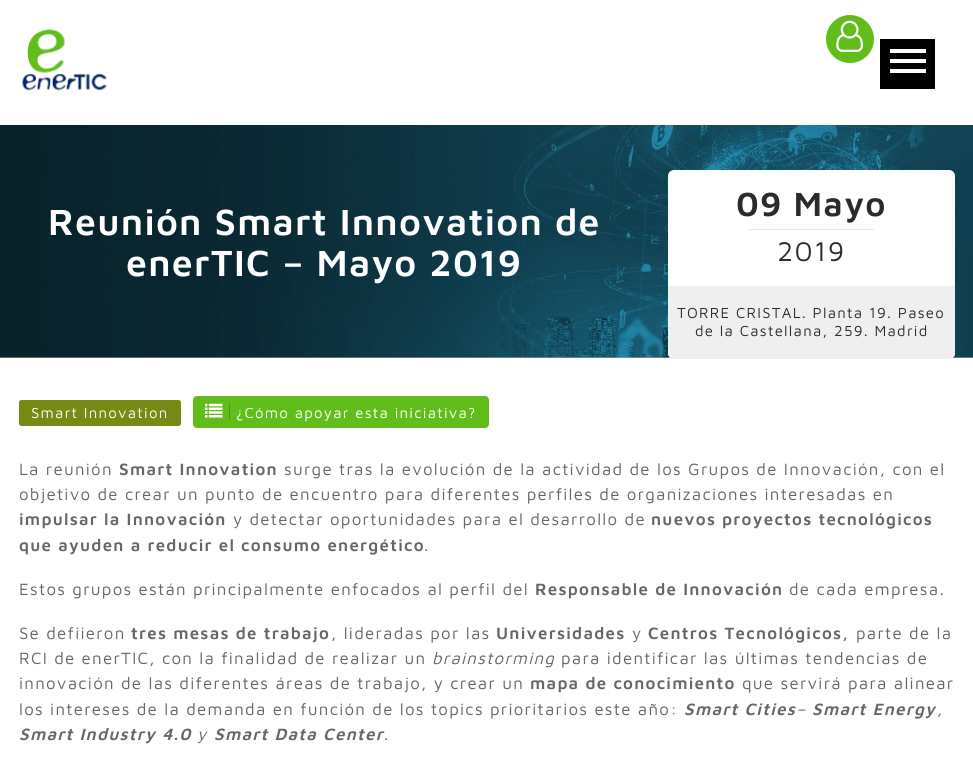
#include <cairo.h>
#include <math.h>
#include <stddef.h>

static cairo_t *ctx;

static void ink(unsigned color) {
    cairo_set_source_rgb(ctx, (color >> 16) / 255.0, (color >> 8 & 255) / 255.0, (color & 255) / 255.0);
}

static void write_spaced(double x, double y, const char *s, double letter, double word) {
    cairo_move_to(ctx, x, y);
    while (*s) {
        char ch[5] = {0};
        int n = 0;
        do ch[n++] = *s++; while ((*s & 0xC0) == 0x80);
        cairo_show_text(ctx, ch);
        cairo_rel_move_to(ctx, letter + word * (*ch == ' '), 0);
    }
}

static void block(double x, double y, double w, double h, unsigned color) {
    ink(color);
    cairo_rectangle(ctx, x, y, w, h);
    cairo_fill(ctx);
}

static void round_path(double x, double y, double w, double h, double r) {
    cairo_new_sub_path(ctx);
    cairo_arc(ctx, x + w - r, y + h - r, r, 0, M_PI / 2);
    cairo_arc(ctx, x + r, y + h - r, r, M_PI / 2, M_PI);
    cairo_arc(ctx, x + r, y + r, r, M_PI, 1.5 * M_PI);
    cairo_arc(ctx, x + w - r, y + r, r, 1.5 * M_PI, 2 * M_PI);
    cairo_close_path(ctx);
}

static void paste(const char *path, double x, double y, double w, double h) {
    cairo_surface_t *image = cairo_image_surface_create_from_png(path);
    cairo_save(ctx);
    cairo_set_source_surface(ctx, image, x, y);
    cairo_rectangle(ctx, x, y, w, h);
    cairo_fill(ctx);
    cairo_restore(ctx);
    cairo_surface_destroy(image);
}

int main(void) {
    cairo_surface_t *surface = cairo_image_surface_create(CAIRO_FORMAT_RGB24, 973, 765);
    ctx = cairo_create(surface);
    cairo_font_options_t *options = cairo_font_options_create();
    cairo_font_options_set_hint_metrics(options, CAIRO_HINT_METRICS_OFF);
    cairo_font_options_set_hint_style(options, CAIRO_HINT_STYLE_NONE);
    cairo_set_font_options(ctx, options);
    cairo_set_miter_limit(ctx, 4);
    ink(0xffffff);
    cairo_paint(ctx);
    block(0, 357, 973, 1, 0xb3b3b3);
    paste("pic1.png", 21, 28, 86, 63);
    ink(0x62bd1b);
    cairo_arc(ctx, 850, 39, 24.5, 0, 2 * M_PI);
    cairo_fill_preserve(ctx);
    ink(0xffffff);
    cairo_set_line_width(ctx, 1);
    cairo_stroke(ctx);
    paste("pic2.png", 836, 20, 27, 32);
    block(880, 39, 55, 50, 0x000000);
    block(890, 69, 36, 4, 0xffffff);
    block(890, 59, 36, 4, 0xffffff);
    block(890, 49, 36, 4, 0xffffff);
    paste("pic4.png", 0, 125, 973, 233);
    round_path(668, 170, 287, 189, 6);
    cairo_fill(ctx);
    cairo_select_font_face(ctx, "Maven Pro SemiBold", CAIRO_FONT_SLANT_NORMAL, CAIRO_FONT_WEIGHT_NORMAL);
    cairo_set_font_size(ctx, 34.5);
    ink(0x292b2c);
    write_spaced(736, 216, "09 Mayo", 1.25, 0);
    block(749, 229, 125, 1, 0xe6e6e6);
    cairo_select_font_face(ctx, "Maven Pro", CAIRO_FONT_SLANT_NORMAL, CAIRO_FONT_WEIGHT_NORMAL);
    cairo_set_font_size(ctx, 28);
    ink(0x292b2c);
    write_spaced(777, 261, "2019", 1.25, 0);
    ink(0xefefef);
    cairo_new_path(ctx);
    cairo_move_to(ctx, 668, 286);
    cairo_line_to(ctx, 955, 286);
    cairo_line_to(ctx, 955, 353);
    cairo_curve_to(ctx, 955, 356.5, 952.5, 359, 949, 359);
    cairo_line_to(ctx, 674, 359);
    cairo_curve_to(ctx, 670.5, 359, 668, 356.5, 668, 353);
    cairo_close_path(ctx);
    cairo_fill(ctx);
    cairo_set_font_size(ctx, 15);
    ink(0x292b2c);
    write_spaced(677, 318, "TORRE CRISTAL. Planta 19. Paseo", 1.25, 0);
    write_spaced(695, 336, "de la Castellana, 259. Madrid", 1.25, 0);
    ink(0x788914);
    round_path(19, 400, 162, 26, 2.5);
    cairo_fill(ctx);
    ink(0xffffff);
    write_spaced(31, 418, "Smart Innovation", 1.25, 0);
    ink(0x61be1a);
    round_path(193, 396, 296, 32, 4);
    cairo_fill(ctx);
    block(229, 403, 1, 17, 0x4e9815);
    paste("pic3.png", 205, 403, 18, 15);
    ink(0xffffff);
    write_spaced(236, 418, "¿Cómo apoyar esta iniciativa?", 1.25, 0);
    cairo_set_font_size(ctx, 16.88);
    ink(0x666666);
    write_spaced(19, 475, "La reunión", 1.25, 0);
    cairo_select_font_face(ctx, "Maven Pro SemiBold", CAIRO_FONT_SLANT_NORMAL, CAIRO_FONT_WEIGHT_NORMAL);
    write_spaced(119, 475, "Smart Innovation", 1.25, 0);
    cairo_select_font_face(ctx, "Maven Pro", CAIRO_FONT_SLANT_NORMAL, CAIRO_FONT_WEIGHT_NORMAL);
    write_spaced(284, 475, "surge tras la evolución de la actividad de los Grupos de Innovación, con el", 1.25, 0);
    write_spaced(19, 500, "objetivo de crear un punto de encuentro para diferentes perfiles de organizaciones interesadas en", 1.25, 0);
    cairo_select_font_face(ctx, "Maven Pro SemiBold", CAIRO_FONT_SLANT_NORMAL, CAIRO_FONT_WEIGHT_NORMAL);
    write_spaced(19, 525, "impulsar la Innovación", 1.25, 0);
    cairo_select_font_face(ctx, "Maven Pro", CAIRO_FONT_SLANT_NORMAL, CAIRO_FONT_WEIGHT_NORMAL);
    write_spaced(233, 525, "y detectar oportunidades para el desarrollo de", 1.25, 0);
    cairo_select_font_face(ctx, "Maven Pro SemiBold", CAIRO_FONT_SLANT_NORMAL, CAIRO_FONT_WEIGHT_NORMAL);
    write_spaced(651, 525, "nuevos proyectos tecnológicos", 1.25, 0);
    write_spaced(19, 551, "que ayuden a reducir el consumo energético", 1.25, 0);
    cairo_select_font_face(ctx, "Maven Pro", CAIRO_FONT_SLANT_NORMAL, CAIRO_FONT_WEIGHT_NORMAL);
    write_spaced(424, 551, ".", 1.25, 0);
    write_spaced(19, 595, "Estos grupos están principalmente enfocados al perfil del", 1.25, 0);
    cairo_select_font_face(ctx, "Maven Pro SemiBold", CAIRO_FONT_SLANT_NORMAL, CAIRO_FONT_WEIGHT_NORMAL);
    write_spaced(535, 595, "Responsable de Innovación", 1.25, 0);
    cairo_select_font_face(ctx, "Maven Pro", CAIRO_FONT_SLANT_NORMAL, CAIRO_FONT_WEIGHT_NORMAL);
    write_spaced(789, 595, "de cada empresa.", 1.25, 0);
    write_spaced(19, 639, "Se defiieron", 1.25, 0);
    cairo_select_font_face(ctx, "Maven Pro SemiBold", CAIRO_FONT_SLANT_NORMAL, CAIRO_FONT_WEIGHT_NORMAL);
    write_spaced(131, 639, "tres mesas de trabajo", 1.25, 0);
    cairo_select_font_face(ctx, "Maven Pro", CAIRO_FONT_SLANT_NORMAL, CAIRO_FONT_WEIGHT_NORMAL);
    write_spaced(331, 639, ", lideradas por las", 1.25, 0);
    cairo_select_font_face(ctx, "Maven Pro SemiBold", CAIRO_FONT_SLANT_NORMAL, CAIRO_FONT_WEIGHT_NORMAL);
    write_spaced(496, 639, "Universidades", 1.25, 0);
    cairo_select_font_face(ctx, "Maven Pro", CAIRO_FONT_SLANT_NORMAL, CAIRO_FONT_WEIGHT_NORMAL);
    write_spaced(632, 639, "y", 1.25, 0);
    cairo_select_font_face(ctx, "Maven Pro SemiBold", CAIRO_FONT_SLANT_NORMAL, CAIRO_FONT_WEIGHT_NORMAL);
    write_spaced(648, 639, "Centros Tecnológicos,", 1.25, 0);
    cairo_select_font_face(ctx, "Maven Pro", CAIRO_FONT_SLANT_NORMAL, CAIRO_FONT_WEIGHT_NORMAL);
    write_spaced(856, 639, "parte de la", 1.25, 0);
    write_spaced(19, 664, "RCI de enerTIC, con la finalidad de realizar un", 1.25, 0);
    cairo_select_font_face(ctx, "Maven Pro", CAIRO_FONT_SLANT_ITALIC, CAIRO_FONT_WEIGHT_NORMAL);
    write_spaced(432, 664, "brainstorming", 1.25, 0);
    cairo_select_font_face(ctx, "Maven Pro", CAIRO_FONT_SLANT_NORMAL, CAIRO_FONT_WEIGHT_NORMAL);
    write_spaced(561, 664, "para identificar las últimas tendencias de", 1.25, 0);
    write_spaced(19, 689, "innovación de las diferentes áreas de trabajo, y crear un", 1.25, 0);
    cairo_select_font_face(ctx, "Maven Pro SemiBold", CAIRO_FONT_SLANT_NORMAL, CAIRO_FONT_WEIGHT_NORMAL);
    write_spaced(530, 689, "mapa de conocimiento", 1.25, 0);
    cairo_select_font_face(ctx, "Maven Pro", CAIRO_FONT_SLANT_NORMAL, CAIRO_FONT_WEIGHT_NORMAL);
    write_spaced(742, 689, "que servirá para alinear", 1.25, 0);
    write_spaced(19, 715, "los intereses de la demanda en función de los topics prioritarios este año:", 1.25, 0);
    cairo_select_font_face(ctx, "Maven Pro SemiBold", CAIRO_FONT_SLANT_ITALIC, CAIRO_FONT_WEIGHT_NORMAL);
    write_spaced(684, 715, "Smart Cities", 1.25, 0);
    cairo_select_font_face(ctx, "Maven Pro", CAIRO_FONT_SLANT_ITALIC, CAIRO_FONT_WEIGHT_NORMAL);
    write_spaced(796, 715, "–", 1.25, 0);
    cairo_select_font_face(ctx, "Maven Pro SemiBold", CAIRO_FONT_SLANT_ITALIC, CAIRO_FONT_WEIGHT_NORMAL);
    write_spaced(812, 715, "Smart Energy", 1.25, 0);
    cairo_select_font_face(ctx, "Maven Pro", CAIRO_FONT_SLANT_ITALIC, CAIRO_FONT_WEIGHT_NORMAL);
    write_spaced(937, 715, ",", 1.25, 0);
    cairo_select_font_face(ctx, "Maven Pro SemiBold", CAIRO_FONT_SLANT_ITALIC, CAIRO_FONT_WEIGHT_NORMAL);
    write_spaced(19, 740, "Smart Industry 4.0", 1.25, 0);
    cairo_select_font_face(ctx, "Maven Pro", CAIRO_FONT_SLANT_ITALIC, CAIRO_FONT_WEIGHT_NORMAL);
    write_spaced(197, 740, "y", 1.25, 0);
    cairo_select_font_face(ctx, "Maven Pro SemiBold", CAIRO_FONT_SLANT_ITALIC, CAIRO_FONT_WEIGHT_NORMAL);
    write_spaced(214, 740, "Smart Data Center", 1.25, 0);
    cairo_select_font_face(ctx, "Maven Pro", CAIRO_FONT_SLANT_NORMAL, CAIRO_FONT_WEIGHT_NORMAL);
    write_spaced(384, 740, ".", 1.25, 0);
    cairo_select_font_face(ctx, "Maven Pro SemiBold", CAIRO_FONT_SLANT_NORMAL, CAIRO_FONT_WEIGHT_NORMAL);
    cairo_set_font_size(ctx, 37.5);
    ink(0xffffff);
    write_spaced(48, 235, "Reunión Smart Innovation de", 1.25, 0);
    write_spaced(126, 276, "enerTIC – Mayo 2019", 1.25, 0);
    cairo_surface_write_to_png(surface, "screenshot.png");
    cairo_font_options_destroy(options);
    cairo_destroy(ctx);
    cairo_surface_destroy(surface);
    return 0;
}
